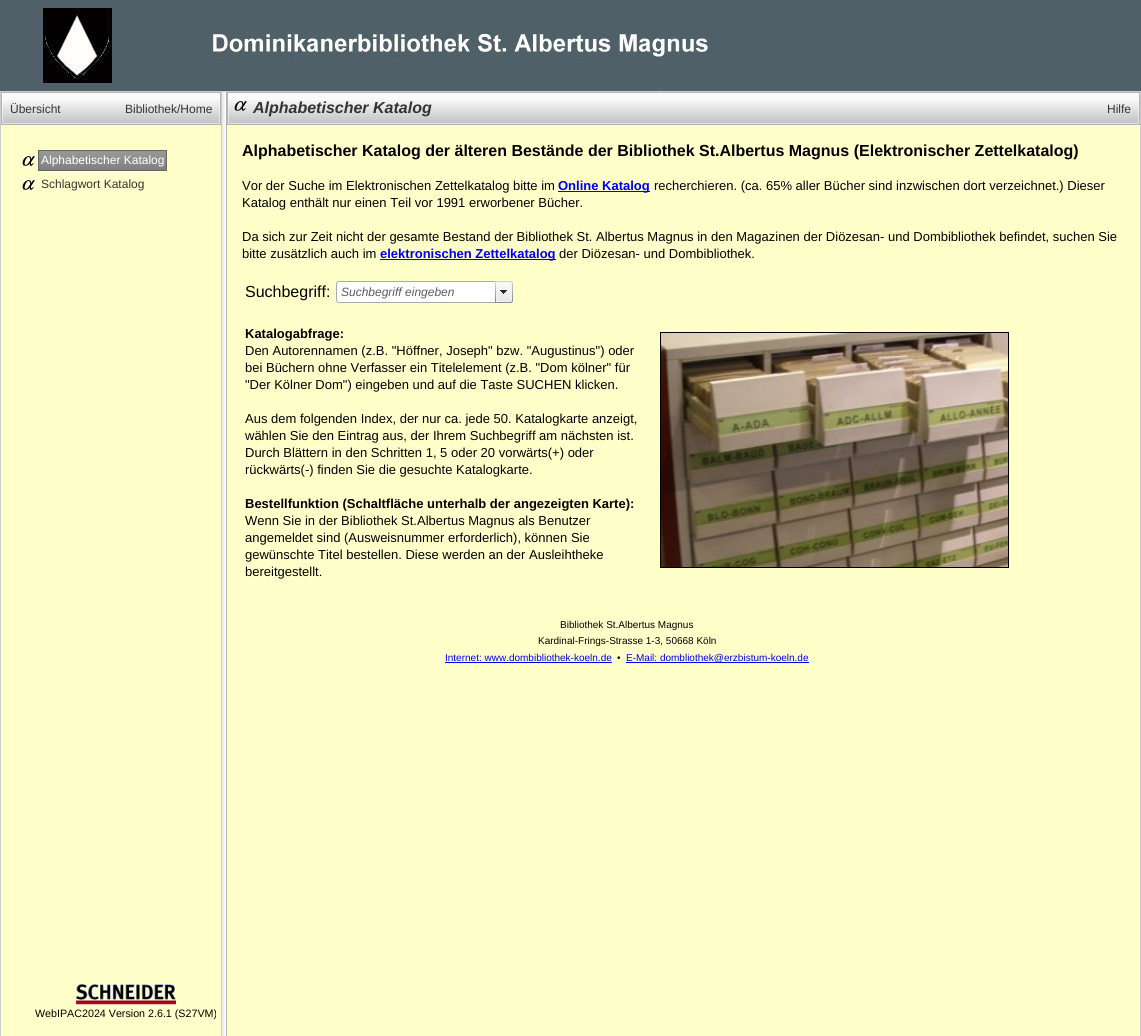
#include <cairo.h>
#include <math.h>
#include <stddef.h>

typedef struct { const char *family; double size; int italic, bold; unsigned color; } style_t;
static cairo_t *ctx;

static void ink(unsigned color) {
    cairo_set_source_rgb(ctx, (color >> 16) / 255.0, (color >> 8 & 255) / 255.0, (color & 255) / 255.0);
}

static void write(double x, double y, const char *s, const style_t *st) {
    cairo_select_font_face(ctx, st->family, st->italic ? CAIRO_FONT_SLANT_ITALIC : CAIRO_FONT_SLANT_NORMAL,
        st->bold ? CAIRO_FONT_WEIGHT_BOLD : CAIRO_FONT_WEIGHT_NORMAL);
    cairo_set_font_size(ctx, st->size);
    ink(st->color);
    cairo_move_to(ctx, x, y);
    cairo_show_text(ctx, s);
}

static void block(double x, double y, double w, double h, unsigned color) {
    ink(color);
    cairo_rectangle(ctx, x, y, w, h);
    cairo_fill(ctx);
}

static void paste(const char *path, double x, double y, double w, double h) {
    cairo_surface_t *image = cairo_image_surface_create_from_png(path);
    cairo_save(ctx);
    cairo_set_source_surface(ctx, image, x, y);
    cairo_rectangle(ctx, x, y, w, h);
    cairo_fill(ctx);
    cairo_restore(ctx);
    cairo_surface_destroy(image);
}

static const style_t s1 = {"Liberation Sans", 12, 0, 0, 0x333333};
static const style_t s2 = {"Liberation Sans", 12, 0, 0, 0xffffff};
static const style_t s3 = {"Liberation Sans", 10.7, 0, 0, 0x000000};
static const style_t s4 = {"Liberation Sans", 16, 1, 1, 0x333333};
static const style_t s5 = {"Liberation Sans", 16, 0, 1, 0x000000};
static const style_t s6 = {"Liberation Sans", 13, 0, 0, 0x000000};
static const style_t s7 = {"Liberation Sans", 13, 0, 1, 0x0000ee};
static const style_t s8 = {"Liberation Sans", 16, 0, 0, 0x000000};
static const style_t s9 = {"Liberation Sans", 12, 1, 0, 0x5c5c5c};
static const style_t s10 = {"Liberation Sans", 13, 0, 1, 0x000000};
static const style_t s11 = {"Liberation Sans", 10, 0, 0, 0x000000};
static const style_t s12 = {"Liberation Sans", 10, 0, 0, 0x0000ee};

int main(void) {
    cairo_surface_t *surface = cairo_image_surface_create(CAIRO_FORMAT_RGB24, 1141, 1036);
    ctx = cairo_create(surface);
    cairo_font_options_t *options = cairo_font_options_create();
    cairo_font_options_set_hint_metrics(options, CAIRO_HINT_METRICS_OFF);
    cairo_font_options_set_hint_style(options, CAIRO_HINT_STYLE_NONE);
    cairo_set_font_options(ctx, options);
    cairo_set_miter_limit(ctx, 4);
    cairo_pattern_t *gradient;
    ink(0xffffc9);
    cairo_paint(ctx);
    block(0, 0, 1141, 91, 0x506069);
    paste("pic1.png", 40, 5, 672, 86);
    block(0, 91, 1141, 1, 0xcccccc);
    block(0, 91, 1, 945, 0xcccccc);
    block(221, 92, 1, 944, 0xcccccc);
    block(2, 93, 218, 7, 0xfafafa);
    paste("pic2.png", 2, 100, 218, 24);
    cairo_rectangle(ctx, 2.5, 93.5, 217, 30);
    cairo_set_source_rgba(ctx, 1, 1, 1, 0.5);
    cairo_set_line_width(ctx, 1);
    cairo_stroke(ctx);
    cairo_rectangle(ctx, 1.5, 92.5, 219, 32);
    ink(0xb3b3b3);
    cairo_stroke(ctx);
    write(10, 113, "Übersicht", &s1);
    write(125, 113, "Bibliothek/Home", &s1);
    paste("pic3.png", 22, 156, 15, 11);
    gradient = cairo_pattern_create_linear(103, 151, 103, 170);
    cairo_pattern_add_color_stop_rgba(gradient, 0, 0.604, 0.6, 0.6, 1);
    cairo_pattern_add_color_stop_rgba(gradient, 1, 0.502, 0.502, 0.502, 1);
    cairo_set_source(ctx, gradient);
    cairo_pattern_destroy(gradient);
    cairo_rectangle(ctx, 39, 151, 127, 19);
    cairo_fill(ctx);
    cairo_rectangle(ctx, 38.5, 150.5, 128, 20);
    ink(0x676666);
    cairo_stroke(ctx);
    write(41, 164, "Alphabetischer Katalog", &s2);
    paste("pic3.png", 22, 180, 15, 11);
    write(41, 188, "Schlagwort Katalog", &s1);
    paste("pic4.png", 76, 984, 100, 21);
    write(35, 1017, "WebIPAC2024 Version 2.6.1 (S27VM)", &s3);
    gradient = cairo_pattern_create_linear(226, 565, 222, 565);
    cairo_pattern_add_color_stop_rgba(gradient, 0, 1, 1, 1, 1);
    cairo_pattern_add_color_stop_rgba(gradient, 1, 0.902, 0.902, 0.902, 1);
    cairo_set_source(ctx, gradient);
    cairo_pattern_destroy(gradient);
    cairo_rectangle(ctx, 222, 92, 4, 944);
    cairo_fill(ctx);
    block(226, 92, 1, 944, 0xb3b3b3);
    block(1140, 92, 1, 944, 0xcccccc);
    block(228, 93, 911, 7, 0xfafafa);
    paste("pic5.png", 228, 100, 911, 24);
    cairo_rectangle(ctx, 228.5, 93.5, 910, 30);
    cairo_set_source_rgba(ctx, 1, 1, 1, 0.5);
    cairo_stroke(ctx);
    cairo_rectangle(ctx, 227.5, 92.5, 912, 32);
    ink(0xb3b3b3);
    cairo_stroke(ctx);
    paste("pic6.png", 234, 101, 15, 10);
    write(253, 113, "Alphabetischer Katalog", &s4);
    write(1107, 113, "Hilfe", &s1);
    write(242, 156, "Alphabetischer Katalog der älteren Bestände der Bibliothek St.Albertus Magnus (Elektronischer Zettelkatalog)", &s5);
    write(242, 190, "Vor der Suche im Elektronischen Zettelkatalog bitte im", &s6);
    block(558, 191, 92, 1, 0x0000ee);
    write(558, 190, "Online Katalog", &s7);
    write(654, 190, "recherchieren. (ca. 65% aller Bücher sind inzwischen dort verzeichnet.) Dieser", &s6);
    write(242, 207, "Katalog enthält nur einen Teil vor 1991 erworbener Bücher.", &s6);
    write(242, 241, "Da sich zur Zeit nicht der gesamte Bestand der Bibliothek St. Albertus Magnus in den Magazinen der Diözesan- und Dombibliothek befindet, suchen Sie", &s6);
    write(242, 258, "bitte zusätzlich auch im", &s6);
    block(380, 259, 176, 1, 0x0000ee);
    write(380, 258, "elektronischen Zettelkatalog", &s7);
    write(559, 258, "der Diözesan- und Dombibliothek.", &s6);
    write(245, 297, "Suchbegriff:", &s8);
    paste("pic7.png", 336, 281, 159, 22);
    write(341, 296, "Suchbegriff eingeben", &s9);
    paste("pic8.png", 495, 281, 18, 22);
    write(245, 338, "Katalogabfrage:", &s10);
    write(245, 355, "Den Autorennamen (z.B. \"Höffner, Joseph\" bzw. \"Augustinus\") oder", &s6);
    write(245, 372, "bei Büchern ohne Verfasser ein Titelelement (z.B. \"Dom kölner\" für", &s6);
    write(245, 389, "\"Der Kölner Dom\") eingeben und auf die Taste SUCHEN klicken.", &s6);
    write(245, 423, "Aus dem folgenden Index, der nur ca. jede 50. Katalogkarte anzeigt,", &s6);
    write(245, 440, "wählen Sie den Eintrag aus, der Ihrem Suchbegriff am nächsten ist.", &s6);
    write(245, 457, "Durch Blättern in den Schritten 1, 5 oder 20 vorwärts(+) oder", &s6);
    write(245, 474, "rückwärts(-) finden Sie die gesuchte Katalogkarte.", &s6);
    write(245, 508, "Bestellfunktion (Schaltfläche unterhalb der angezeigten Karte):", &s10);
    write(245, 525, "Wenn Sie in der Bibliothek St.Albertus Magnus als Benutzer", &s6);
    write(245, 542, "angemeldet sind (Ausweisnummer erforderlich), können Sie", &s6);
    write(245, 559, "gewünschte Titel bestellen. Diese werden an der Ausleihtheke", &s6);
    write(245, 576, "bereitgestellt.", &s6);
    cairo_rectangle(ctx, 660.5, 332.5, 348, 235);
    cairo_stroke(ctx);
    paste("pic9.png", 661, 333, 347, 234);
    write(560, 628, "Bibliothek St.Albertus Magnus", &s11);
    write(538, 644, "Kardinal-Frings-Strasse 1-3, 50668 Köln", &s11);
    write(445, 661, "Internet: www.dombibliothek-koeln.de", &s12);
    block(445, 662, 167, 1, 0x0000ee);
    write(617, 661, "•", &s11);
    block(626, 662, 183, 1, 0x0000ee);
    write(626, 661, "E-Mail: dombliothek@erzbistum-koeln.de", &s12);
    cairo_surface_write_to_png(surface, "screenshot.png");
    cairo_font_options_destroy(options);
    cairo_destroy(ctx);
    cairo_surface_destroy(surface);
    return 0;
}
